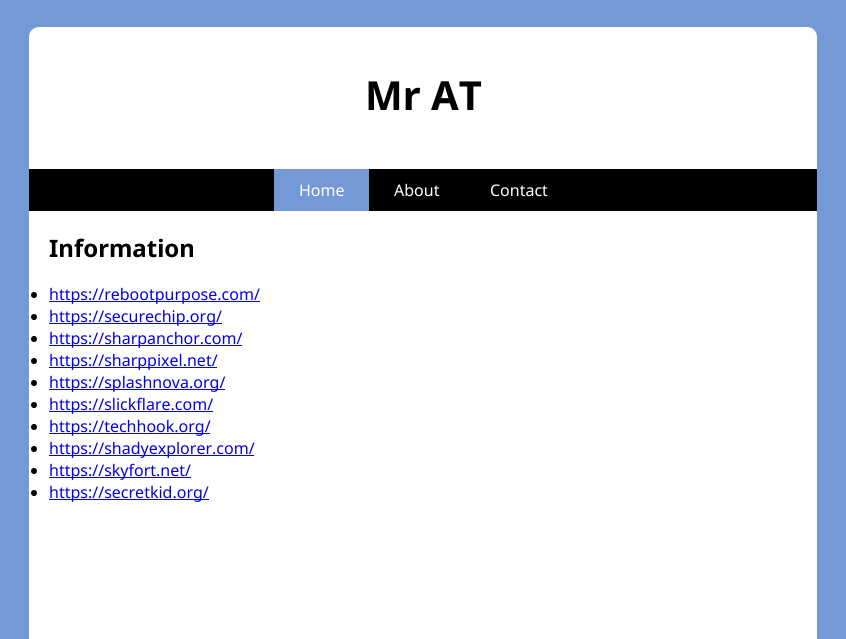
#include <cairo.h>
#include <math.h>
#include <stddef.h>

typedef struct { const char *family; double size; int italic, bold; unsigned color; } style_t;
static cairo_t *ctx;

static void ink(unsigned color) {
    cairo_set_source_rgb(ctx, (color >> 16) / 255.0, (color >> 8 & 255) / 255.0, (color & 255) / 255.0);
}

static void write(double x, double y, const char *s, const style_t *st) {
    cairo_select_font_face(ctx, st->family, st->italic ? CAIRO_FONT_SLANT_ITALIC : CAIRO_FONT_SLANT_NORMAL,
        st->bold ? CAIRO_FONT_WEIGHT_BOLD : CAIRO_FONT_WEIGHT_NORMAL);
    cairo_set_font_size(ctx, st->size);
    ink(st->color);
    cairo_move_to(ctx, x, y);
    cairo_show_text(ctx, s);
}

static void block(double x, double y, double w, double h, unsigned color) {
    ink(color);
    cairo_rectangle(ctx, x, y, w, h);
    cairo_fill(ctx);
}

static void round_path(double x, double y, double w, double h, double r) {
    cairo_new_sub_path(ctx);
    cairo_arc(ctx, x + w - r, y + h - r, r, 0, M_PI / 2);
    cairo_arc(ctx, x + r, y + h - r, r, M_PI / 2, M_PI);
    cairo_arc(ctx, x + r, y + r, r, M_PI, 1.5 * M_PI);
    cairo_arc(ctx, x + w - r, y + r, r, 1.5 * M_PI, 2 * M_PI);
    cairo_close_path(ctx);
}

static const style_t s1 = {"Noto Sans", 40, 0, 1, 0x000000};
static const style_t s2 = {"Noto Sans", 16, 0, 0, 0xffffff};
static const style_t s3 = {"Noto Sans", 24, 0, 1, 0x000000};
static const style_t s4 = {"Noto Sans", 16, 0, 0, 0x0000ee};

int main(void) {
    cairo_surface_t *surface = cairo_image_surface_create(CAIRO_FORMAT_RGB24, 846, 639);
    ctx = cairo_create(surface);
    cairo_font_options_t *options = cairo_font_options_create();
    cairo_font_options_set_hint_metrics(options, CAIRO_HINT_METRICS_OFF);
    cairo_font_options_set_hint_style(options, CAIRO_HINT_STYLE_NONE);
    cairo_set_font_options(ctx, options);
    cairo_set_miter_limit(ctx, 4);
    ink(0x7598d6);
    cairo_paint(ctx);
    ink(0xffffff);
    round_path(29, 27, 788, 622, 10);
    cairo_fill(ctx);
    write(365, 110, "Mr AT", &s1);
    block(29, 169, 788, 42, 0x000000);
    block(274, 169, 95, 42, 0x7598d6);
    write(299, 196, "Home", &s2);
    write(394, 196, "About", &s2);
    write(490, 196, "Contact", &s2);
    write(49, 257, "Information", &s3);
    cairo_new_path(ctx);
    cairo_arc(ctx, 34, 295, 3, 0, 2 * M_PI);
    cairo_fill(ctx);
    block(49, 301, 211, 1, 0x0000ee);
    write(49, 300, "https://rebootpurpose.com/", &s4);
    ink(0x000000);
    cairo_new_path(ctx);
    cairo_arc(ctx, 34, 317, 3, 0, 2 * M_PI);
    cairo_fill(ctx);
    block(49, 323, 173, 1, 0x0000ee);
    write(49, 322, "https://securechip.org/", &s4);
    ink(0x000000);
    cairo_new_path(ctx);
    cairo_arc(ctx, 34, 339, 3, 0, 2 * M_PI);
    cairo_fill(ctx);
    block(49, 345, 193, 1, 0x0000ee);
    write(49, 344, "https://sharpanchor.com/", &s4);
    ink(0x000000);
    cairo_new_path(ctx);
    cairo_arc(ctx, 34, 361, 3, 0, 2 * M_PI);
    cairo_fill(ctx);
    block(49, 367, 168, 1, 0x0000ee);
    write(49, 366, "https://sharppixel.net/", &s4);
    ink(0x000000);
    cairo_new_path(ctx);
    cairo_arc(ctx, 34, 383, 3, 0, 2 * M_PI);
    cairo_fill(ctx);
    block(49, 389, 176, 1, 0x0000ee);
    write(49, 388, "https://splashnova.org/", &s4);
    ink(0x000000);
    cairo_new_path(ctx);
    cairo_arc(ctx, 34, 405, 3, 0, 2 * M_PI);
    cairo_fill(ctx);
    block(49, 411, 164, 1, 0x0000ee);
    write(49, 410, "https://slickflare.com/", &s4);
    ink(0x000000);
    cairo_new_path(ctx);
    cairo_arc(ctx, 34, 427, 3, 0, 2 * M_PI);
    cairo_fill(ctx);
    block(49, 433, 161, 1, 0x0000ee);
    write(49, 432, "https://techhook.org/", &s4);
    ink(0x000000);
    cairo_new_path(ctx);
    cairo_arc(ctx, 34, 449, 3, 0, 2 * M_PI);
    cairo_fill(ctx);
    block(49, 455, 205, 1, 0x0000ee);
    write(49, 454, "https://shadyexplorer.com/", &s4);
    ink(0x000000);
    cairo_new_path(ctx);
    cairo_arc(ctx, 34, 471, 3, 0, 2 * M_PI);
    cairo_fill(ctx);
    block(49, 477, 142, 1, 0x0000ee);
    write(49, 476, "https://skyfort.net/", &s4);
    ink(0x000000);
    cairo_new_path(ctx);
    cairo_arc(ctx, 34, 493, 3, 0, 2 * M_PI);
    cairo_fill(ctx);
    block(49, 499, 160, 1, 0x0000ee);
    write(49, 498, "https://secretkid.org/", &s4);
    cairo_surface_write_to_png(surface, "screenshot.png");
    cairo_font_options_destroy(options);
    cairo_destroy(ctx);
    cairo_surface_destroy(surface);
    return 0;
}
